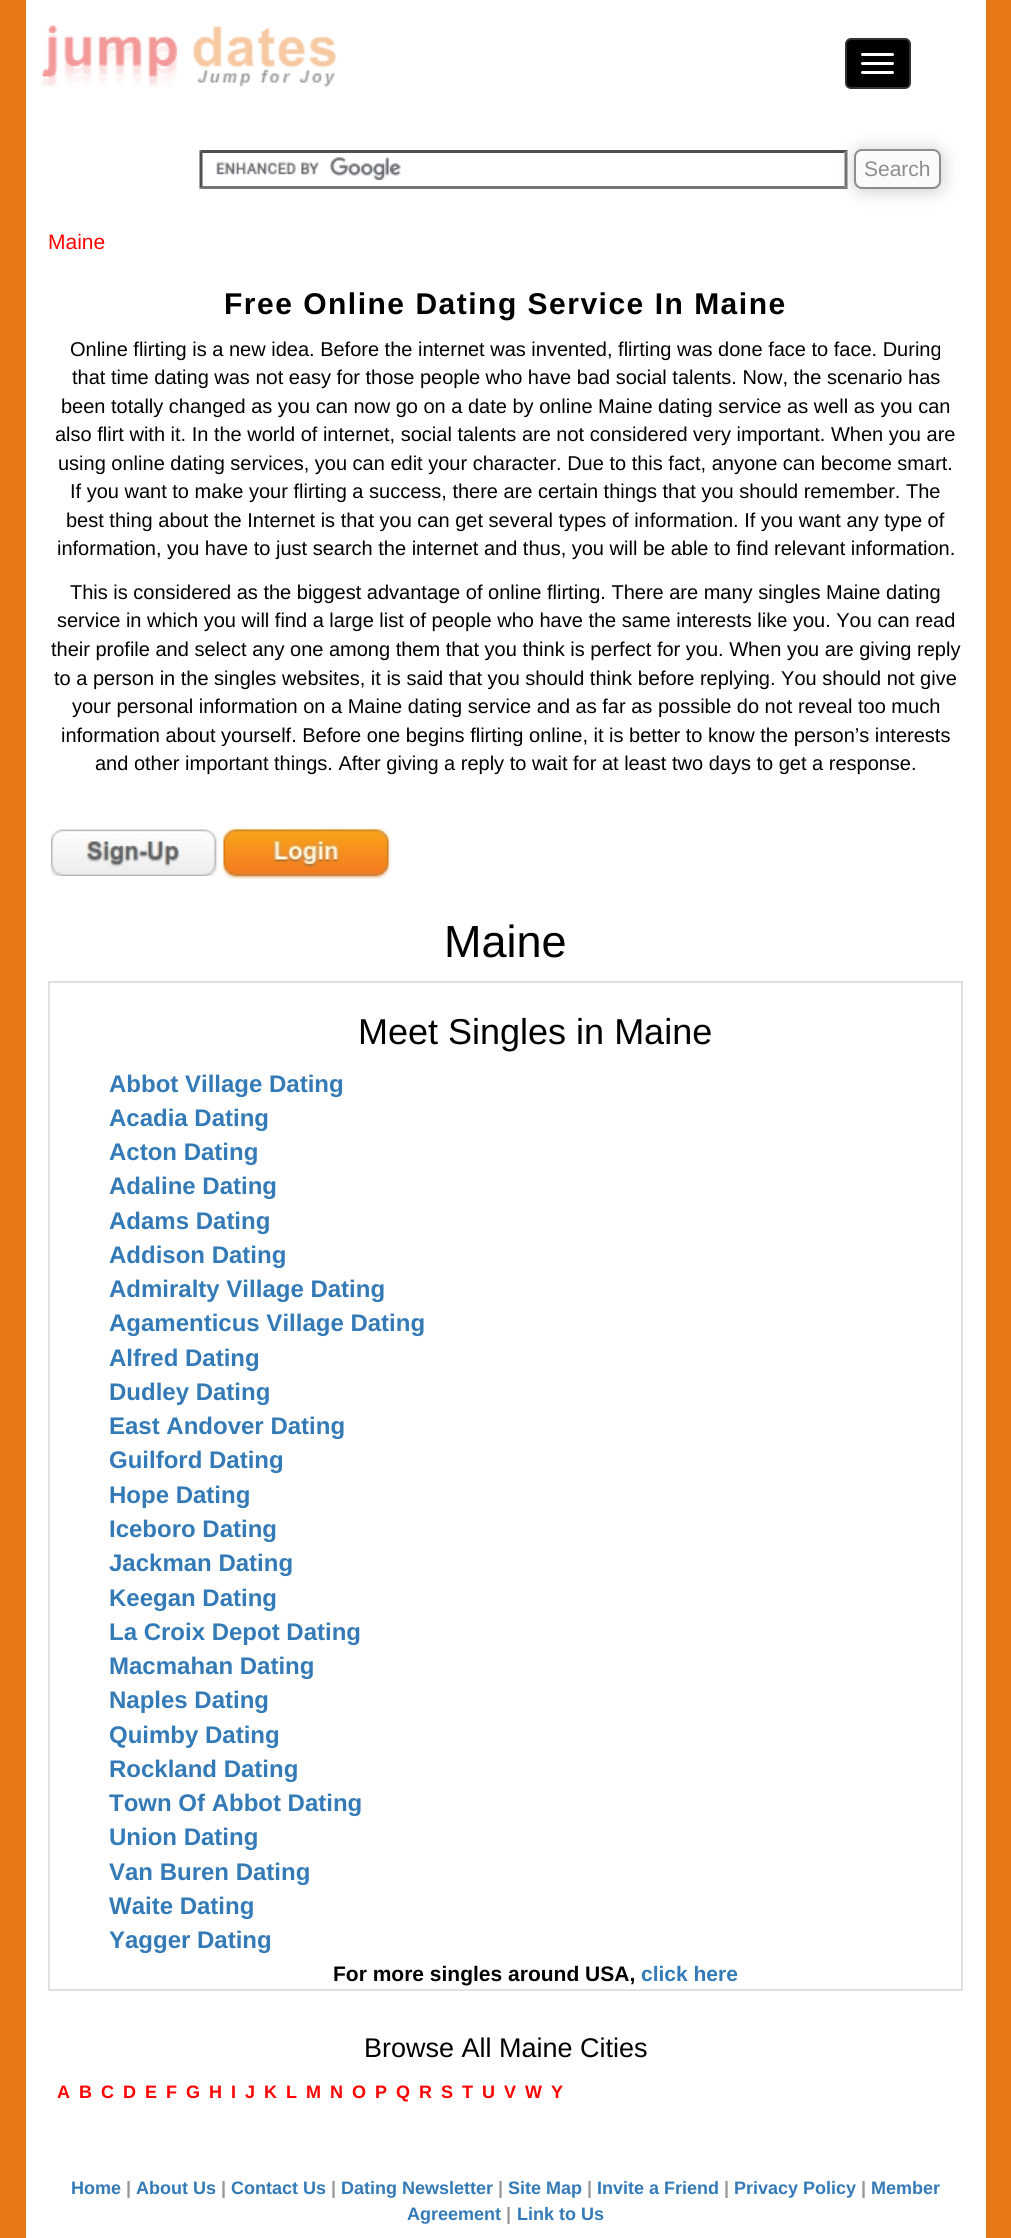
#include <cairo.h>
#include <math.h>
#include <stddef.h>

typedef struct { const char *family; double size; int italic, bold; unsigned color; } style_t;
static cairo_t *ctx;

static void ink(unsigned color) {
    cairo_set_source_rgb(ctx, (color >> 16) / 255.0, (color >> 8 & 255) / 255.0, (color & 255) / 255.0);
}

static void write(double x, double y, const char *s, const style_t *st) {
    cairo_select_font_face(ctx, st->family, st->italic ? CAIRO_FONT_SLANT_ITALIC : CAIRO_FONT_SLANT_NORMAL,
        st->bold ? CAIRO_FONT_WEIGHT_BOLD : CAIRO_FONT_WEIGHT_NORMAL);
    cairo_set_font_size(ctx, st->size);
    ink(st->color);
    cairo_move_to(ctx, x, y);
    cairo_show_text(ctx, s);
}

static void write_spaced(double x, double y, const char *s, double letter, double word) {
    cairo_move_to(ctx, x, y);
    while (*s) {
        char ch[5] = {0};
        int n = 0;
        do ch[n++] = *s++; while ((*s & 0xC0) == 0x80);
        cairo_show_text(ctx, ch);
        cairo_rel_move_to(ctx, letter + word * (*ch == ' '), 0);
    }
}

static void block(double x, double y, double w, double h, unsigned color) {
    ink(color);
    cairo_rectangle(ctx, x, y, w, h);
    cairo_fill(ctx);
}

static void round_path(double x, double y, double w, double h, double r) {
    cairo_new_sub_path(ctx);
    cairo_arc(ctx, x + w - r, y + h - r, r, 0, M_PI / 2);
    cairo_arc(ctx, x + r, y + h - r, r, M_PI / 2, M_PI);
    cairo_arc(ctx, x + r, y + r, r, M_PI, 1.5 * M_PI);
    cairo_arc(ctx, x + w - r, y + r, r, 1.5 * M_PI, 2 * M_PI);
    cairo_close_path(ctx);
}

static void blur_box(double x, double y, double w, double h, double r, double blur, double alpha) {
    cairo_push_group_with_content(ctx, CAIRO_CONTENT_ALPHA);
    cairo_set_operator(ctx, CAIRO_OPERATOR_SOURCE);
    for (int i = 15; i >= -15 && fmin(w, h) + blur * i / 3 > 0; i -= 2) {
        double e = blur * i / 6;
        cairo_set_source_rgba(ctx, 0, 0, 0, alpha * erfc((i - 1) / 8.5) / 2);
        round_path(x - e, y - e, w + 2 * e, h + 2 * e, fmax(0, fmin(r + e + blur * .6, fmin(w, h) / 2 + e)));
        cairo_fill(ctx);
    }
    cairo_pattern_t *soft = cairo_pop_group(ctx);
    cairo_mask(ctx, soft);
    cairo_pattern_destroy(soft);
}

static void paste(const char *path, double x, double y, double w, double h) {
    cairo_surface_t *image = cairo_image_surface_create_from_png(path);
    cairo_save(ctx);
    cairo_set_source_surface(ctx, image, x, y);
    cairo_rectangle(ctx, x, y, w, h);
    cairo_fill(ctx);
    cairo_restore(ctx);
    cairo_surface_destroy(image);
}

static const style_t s1 = {"Liberation Sans", 21, 0, 0, 0x8d8d8d};
static const style_t s2 = {"Liberation Sans", 21, 0, 0, 0xff0000};
static const style_t s3 = {"Liberation Sans", 20, 0, 0, 0x000000};
static const style_t s4 = {"Liberation Sans", 45, 0, 0, 0x000000};
static const style_t s5 = {"Liberation Sans", 36, 0, 0, 0x000000};
static const style_t s6 = {"Liberation Sans", 24, 0, 1, 0x337ab7};
static const style_t s7 = {"Liberation Sans", 21, 0, 1, 0x000000};
static const style_t s8 = {"Liberation Sans", 21, 0, 1, 0x337ab7};
static const style_t s9 = {"Liberation Sans", 27, 0, 0, 0x000000};
static const style_t s10 = {"Liberation Sans", 18, 0, 1, 0xff0000};
static const style_t s11 = {"Liberation Sans", 18, 0, 1, 0x989796};
static const style_t s12 = {"Liberation Sans", 18, 0, 1, 0x337ab7};

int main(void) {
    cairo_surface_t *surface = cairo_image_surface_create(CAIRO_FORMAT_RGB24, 1011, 2238);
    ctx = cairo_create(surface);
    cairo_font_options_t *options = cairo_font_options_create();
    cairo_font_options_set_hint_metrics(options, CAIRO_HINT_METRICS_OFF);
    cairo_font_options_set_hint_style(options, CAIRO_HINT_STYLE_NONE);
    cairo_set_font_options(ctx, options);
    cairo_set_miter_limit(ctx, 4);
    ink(0xe67817);
    cairo_paint(ctx);
    block(26, 0, 960, 2238, 0xffffff);
    paste("pic1.png", 41, 25, 296, 63);
    ink(0x000000);
    round_path(846, 39, 64, 49, 5);
    cairo_fill_preserve(ctx);
    ink(0x333333);
    cairo_stroke(ctx);
    ink(0xffffff);
    round_path(861, 53, 33, 3, 1.5);
    cairo_fill(ctx);
    round_path(861, 62, 33, 3, 1.5);
    cairo_fill(ctx);
    round_path(861, 71, 33, 3, 1.5);
    cairo_fill(ctx);
    paste("pic2.png", 216, 157, 185, 23);
    ink(0x4f4f4f);
    cairo_new_path(ctx);
    cairo_move_to(ctx, 200, 150);
    cairo_line_to(ctx, 848, 150);
    cairo_line_to(ctx, 844, 153);
    cairo_line_to(ctx, 202, 153);
    cairo_close_path(ctx);
    cairo_fill(ctx);
    ink(0x767676);
    cairo_new_path(ctx);
    cairo_move_to(ctx, 847.5, 150);
    cairo_line_to(ctx, 847.5, 189);
    cairo_line_to(ctx, 844.5, 186);
    cairo_line_to(ctx, 844.5, 153);
    cairo_close_path(ctx);
    cairo_fill(ctx);
    cairo_new_path(ctx);
    cairo_move_to(ctx, 848, 189);
    cairo_line_to(ctx, 200, 189);
    cairo_line_to(ctx, 202, 186);
    cairo_line_to(ctx, 844, 186);
    cairo_close_path(ctx);
    cairo_fill(ctx);
    ink(0x4f4f4f);
    cairo_new_path(ctx);
    cairo_move_to(ctx, 199.5, 189);
    cairo_line_to(ctx, 199.5, 150);
    cairo_line_to(ctx, 202.5, 153);
    cairo_line_to(ctx, 202.5, 186);
    cairo_close_path(ctx);
    cairo_fill(ctx);
    ink(0x000000);
    blur_box(855, 150, 87, 41, 8, 9, 0.2);
    ink(0xfafafa);
    round_path(855, 150, 85, 38, 7);
    cairo_fill_preserve(ctx);
    ink(0x8d8d8d);
    cairo_stroke(ctx);
    write(864, 176, "Search", &s1);
    write(48, 249, "Maine", &s2);
    cairo_select_font_face(ctx, "Liberation Sans", CAIRO_FONT_SLANT_NORMAL, CAIRO_FONT_WEIGHT_BOLD);
    cairo_set_font_size(ctx, 30);
    ink(0x000000);
    write_spaced(224, 314, "Free Online Dating Service In Maine", 1.5, 0);
    write(70, 356, "Online flirting is a new idea. Before the internet was invented, flirting was done face to face. During", &s3);
    write(72, 384, "that time dating was not easy for those people who have bad social talents. Now, the scenario has", &s3);
    write(61, 413, "been totally changed as you can now go on a date by online Maine dating service as well as you can", &s3);
    write(55, 441, "also flirt with it. In the world of internet, social talents are not considered very important. When you are", &s3);
    write(58, 470, "using online dating services, you can edit your character. Due to this fact, anyone can become smart.", &s3);
    write(70, 498, "If you want to make your flirting a success, there are certain things that you should remember. The", &s3);
    write(66, 527, "best thing about the Internet is that you can get several types of information. If you want any type of", &s3);
    write(57, 555, "information, you have to just search the internet and thus, you will be able to find relevant information.", &s3);
    write(70, 599, "This is considered as the biggest advantage of online flirting. There are many singles Maine dating", &s3);
    write(57, 627, "service in which you will find a large list of people who have the same interests like you. You can read", &s3);
    write(51, 656, "their profile and select any one among them that you think is perfect for you. When you are giving reply", &s3);
    write(54, 685, "to a person in the singles websites, it is said that you should think before replying. You should not give", &s3);
    write(72, 713, "your personal information on a Maine dating service and as far as possible do not reveal too much", &s3);
    write(61, 742, "information about yourself. Before one begins flirting online, it is better to know the person’s interests", &s3);
    write(95, 770, "and other important things. After giving a reply to wait for at least two days to get a response.", &s3);
    paste("pic3.png", 51, 829, 167, 47);
    paste("pic4.png", 223, 827, 168, 52);
    write(444, 957, "Maine", &s4);
    cairo_rectangle(ctx, 49, 982, 913, 1008);
    ink(0xe1e1e1);
    cairo_stroke(ctx);
    write(358, 1044, "Meet Singles in Maine", &s5);
    write(109, 1092, "Abbot Village Dating", &s6);
    write(109, 1126, "Acadia Dating", &s6);
    write(109, 1160, "Acton Dating", &s6);
    write(109, 1194, "Adaline Dating", &s6);
    write(109, 1229, "Adams Dating", &s6);
    write(109, 1263, "Addison Dating", &s6);
    write(109, 1297, "Admiralty Village Dating", &s6);
    write(109, 1331, "Agamenticus Village Dating", &s6);
    write(109, 1366, "Alfred Dating", &s6);
    write(109, 1400, "Dudley Dating", &s6);
    write(109, 1434, "East Andover Dating", &s6);
    write(109, 1468, "Guilford Dating", &s6);
    write(109, 1503, "Hope Dating", &s6);
    write(109, 1537, "Iceboro Dating", &s6);
    write(109, 1571, "Jackman Dating", &s6);
    write(109, 1606, "Keegan Dating", &s6);
    write(109, 1640, "La Croix Depot Dating", &s6);
    write(109, 1674, "Macmahan Dating", &s6);
    write(109, 1708, "Naples Dating", &s6);
    write(109, 1743, "Quimby Dating", &s6);
    write(109, 1777, "Rockland Dating", &s6);
    write(109, 1811, "Town Of Abbot Dating", &s6);
    write(109, 1845, "Union Dating", &s6);
    write(109, 1880, "Van Buren Dating", &s6);
    write(109, 1914, "Waite Dating", &s6);
    write(109, 1948, "Yagger Dating", &s6);
    write(333, 1981, "For more singles around USA,", &s7);
    write(641, 1981, "click here", &s8);
    write(364, 2057, "Browse All Maine Cities", &s9);
    write(57, 2098, "A", &s10);
    write(79, 2098, "B", &s10);
    write(101, 2098, "C", &s10);
    write(123, 2098, "D", &s10);
    write(145, 2098, "E", &s10);
    write(166, 2098, "F", &s10);
    write(186, 2098, "G", &s10);
    write(209, 2098, "H", &s10);
    write(231, 2098, "I", &s10);
    write(245, 2098, "J", &s10);
    write(264, 2098, "K", &s10);
    write(286, 2098, "L", &s10);
    write(306, 2098, "M", &s10);
    write(330, 2098, "N", &s10);
    write(352, 2098, "O", &s10);
    write(375, 2098, "P", &s10);
    write(396, 2098, "Q", &s10);
    write(419, 2098, "R", &s10);
    write(441, 2098, "S", &s10);
    write(462, 2098, "T", &s10);
    write(482, 2098, "U", &s10);
    write(504, 2098, "V", &s10);
    write(525, 2098, "W", &s10);
    write(551, 2098, "Y", &s10);
    write(126, 2194, "|", &s11);
    write(136, 2194, "About Us", &s12);
    write(221, 2194, "|", &s11);
    write(331, 2194, "|", &s11);
    write(341, 2194, "Dating Newsletter", &s12);
    write(871, 2194, "Member", &s12);
    write(407, 2220, "Agreement", &s12);
    write(71, 2194, "Home", &s12);
    write(231, 2194, "Contact Us", &s12);
    write(498, 2194, "|", &s11);
    write(508, 2194, "Site Map", &s12);
    write(587, 2194, "|", &s11);
    write(597, 2194, "Invite a Friend", &s12);
    write(724, 2194, "|", &s11);
    write(734, 2194, "Privacy Policy", &s12);
    write(861, 2194, "|", &s11);
    write(506, 2220, "|", &s11);
    write(517, 2220, "Link to Us", &s12);
    cairo_surface_write_to_png(surface, "screenshot.png");
    cairo_font_options_destroy(options);
    cairo_destroy(ctx);
    cairo_surface_destroy(surface);
    return 0;
}
